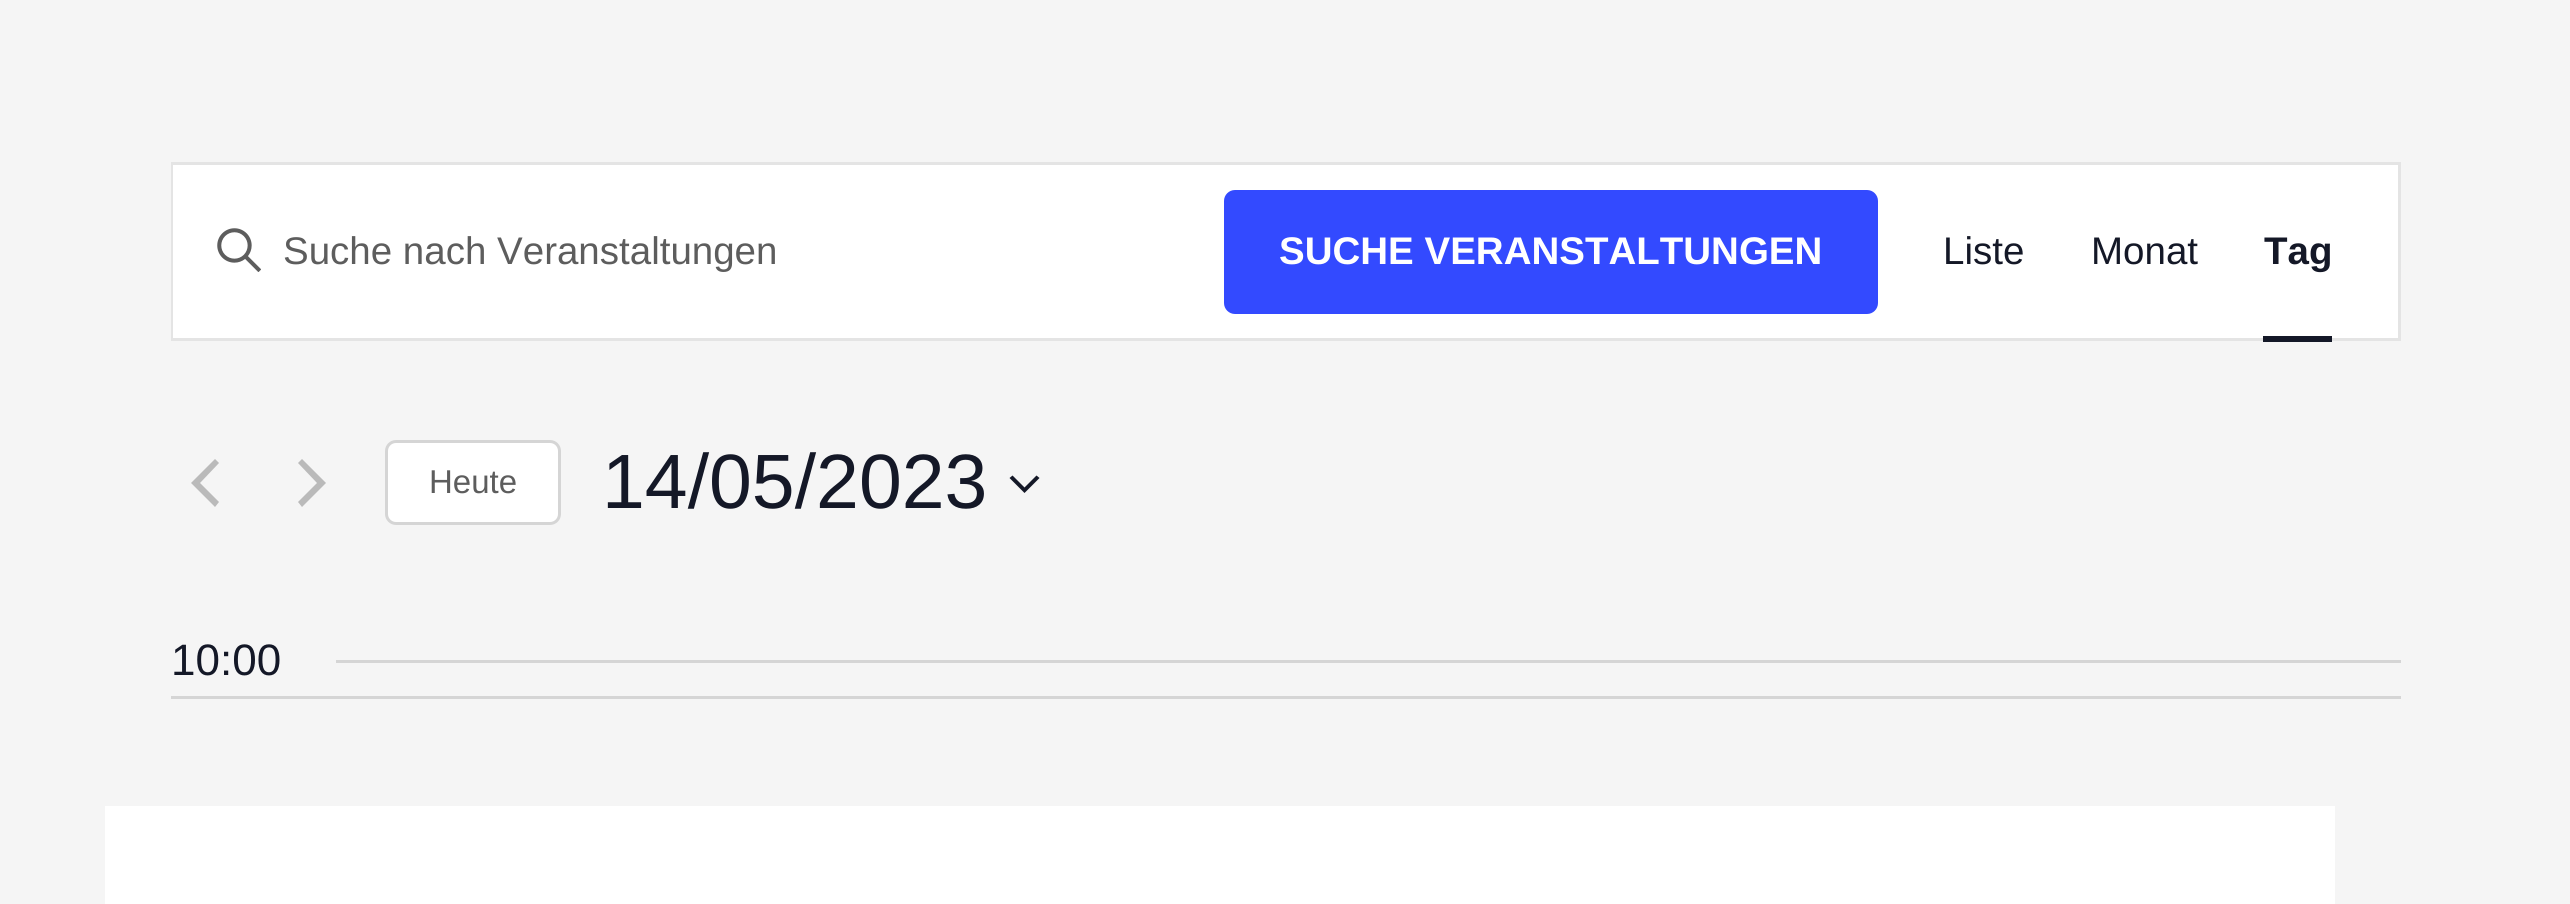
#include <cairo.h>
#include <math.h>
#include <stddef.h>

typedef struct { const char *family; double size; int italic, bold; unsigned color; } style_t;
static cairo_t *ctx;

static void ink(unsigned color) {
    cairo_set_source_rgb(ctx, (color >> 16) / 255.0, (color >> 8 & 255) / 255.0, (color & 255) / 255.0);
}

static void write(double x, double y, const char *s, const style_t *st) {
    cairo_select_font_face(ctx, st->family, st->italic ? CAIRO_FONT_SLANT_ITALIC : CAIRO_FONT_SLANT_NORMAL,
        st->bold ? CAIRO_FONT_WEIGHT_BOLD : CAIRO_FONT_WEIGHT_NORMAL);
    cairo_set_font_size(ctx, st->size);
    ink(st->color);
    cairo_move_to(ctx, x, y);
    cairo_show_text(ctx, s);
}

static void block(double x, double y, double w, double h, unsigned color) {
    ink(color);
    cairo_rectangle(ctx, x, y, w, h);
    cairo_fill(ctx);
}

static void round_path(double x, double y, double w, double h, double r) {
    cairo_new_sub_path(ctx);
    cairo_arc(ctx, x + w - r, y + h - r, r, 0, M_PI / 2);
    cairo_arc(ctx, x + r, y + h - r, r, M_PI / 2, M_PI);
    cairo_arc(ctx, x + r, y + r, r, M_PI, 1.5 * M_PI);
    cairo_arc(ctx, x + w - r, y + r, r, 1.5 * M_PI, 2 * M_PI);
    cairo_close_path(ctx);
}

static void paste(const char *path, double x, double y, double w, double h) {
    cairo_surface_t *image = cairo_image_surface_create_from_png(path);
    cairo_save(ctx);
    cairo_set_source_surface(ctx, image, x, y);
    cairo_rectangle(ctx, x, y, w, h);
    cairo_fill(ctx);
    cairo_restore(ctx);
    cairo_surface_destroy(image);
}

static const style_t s1 = {"Liberation Sans", 38.5, 0, 0, 0x5d5d5d};
static const style_t s2 = {"Liberation Sans", 38.5, 0, 1, 0xffffff};
static const style_t s3 = {"Liberation Sans", 38.5, 0, 0, 0x141827};
static const style_t s4 = {"Liberation Sans", 38.5, 0, 1, 0x141827};
static const style_t s5 = {"Liberation Sans", 33, 0, 0, 0x5d5d5d};
static const style_t s6 = {"Liberation Sans", 77, 0, 0, 0x141827};
static const style_t s7 = {"Liberation Sans", 44, 0, 0, 0x141827};

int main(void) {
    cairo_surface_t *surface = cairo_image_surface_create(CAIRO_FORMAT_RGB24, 2570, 904);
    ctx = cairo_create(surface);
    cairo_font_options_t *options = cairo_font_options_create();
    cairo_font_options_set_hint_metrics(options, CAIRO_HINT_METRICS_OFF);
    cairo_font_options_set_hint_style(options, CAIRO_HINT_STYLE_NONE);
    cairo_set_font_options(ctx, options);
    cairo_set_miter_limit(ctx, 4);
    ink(0xf5f5f5);
    cairo_paint(ctx);
    block(1878, 165, 520, 173, 0xffffff);
    cairo_rectangle(ctx, 172.5, 163.5, 2227, 176);
    ink(0xe4e4e4);
    cairo_set_line_width(ctx, 3);
    cairo_stroke(ctx);
    block(173, 165, 1705, 173, 0xffffff);
    paste("pic1.png", 217, 228, 44, 44);
    write(283, 264, "Suche nach Veranstaltungen", &s1);
    ink(0x334aff);
    round_path(1224, 190, 654, 124, 11);
    cairo_fill(ctx);
    write(1279, 264, "SUCHE VERANSTALTUNGEN", &s2);
    write(1943, 264, "Liste", &s3);
    write(2091, 264, "Monat", &s3);
    write(2264, 264, "Tag", &s4);
    block(2263, 336, 69, 6, 0x141827);
    ink(0xbababa);
    cairo_new_path(ctx);
    cairo_move_to(ctx, 219, 502);
    cairo_line_to(ctx, 215, 507);
    cairo_line_to(ctx, 191, 483);
    cairo_line_to(ctx, 215, 459);
    cairo_line_to(ctx, 219, 463);
    cairo_line_to(ctx, 200, 483);
    cairo_close_path(ctx);
    cairo_fill(ctx);
    cairo_new_path(ctx);
    cairo_move_to(ctx, 298, 463);
    cairo_line_to(ctx, 302, 459);
    cairo_line_to(ctx, 326, 483);
    cairo_line_to(ctx, 302, 507);
    cairo_line_to(ctx, 298, 502);
    cairo_line_to(ctx, 317, 483);
    cairo_close_path(ctx);
    cairo_fill(ctx);
    ink(0xffffff);
    round_path(386.5, 441.5, 173, 82, 9.5);
    cairo_fill_preserve(ctx);
    ink(0xd5d5d5);
    cairo_stroke(ctx);
    write(429, 493, "Heute", &s5);
    write(602, 508, "14/05/2023", &s6);
    cairo_set_fill_rule(ctx, CAIRO_FILL_RULE_EVEN_ODD);
    cairo_new_path(ctx);
    cairo_move_to(ctx, 1012.5, 475.5);
    cairo_line_to(ctx, 1024.5, 487.5);
    cairo_line_to(ctx, 1036.5, 475.5);
    cairo_line_to(ctx, 1039.5, 478);
    cairo_line_to(ctx, 1024.5, 493);
    cairo_line_to(ctx, 1009.5, 478);
    cairo_close_path(ctx);
    cairo_fill(ctx);
    write(171, 675, "10:00", &s7);
    block(336, 660, 2065, 3, 0xd5d5d5);
    block(105, 806, 2230, 98, 0xffffff);
    block(171, 696, 2230, 3, 0xd5d5d5);
    cairo_surface_write_to_png(surface, "screenshot.png");
    cairo_font_options_destroy(options);
    cairo_destroy(ctx);
    cairo_surface_destroy(surface);
    return 0;
}
